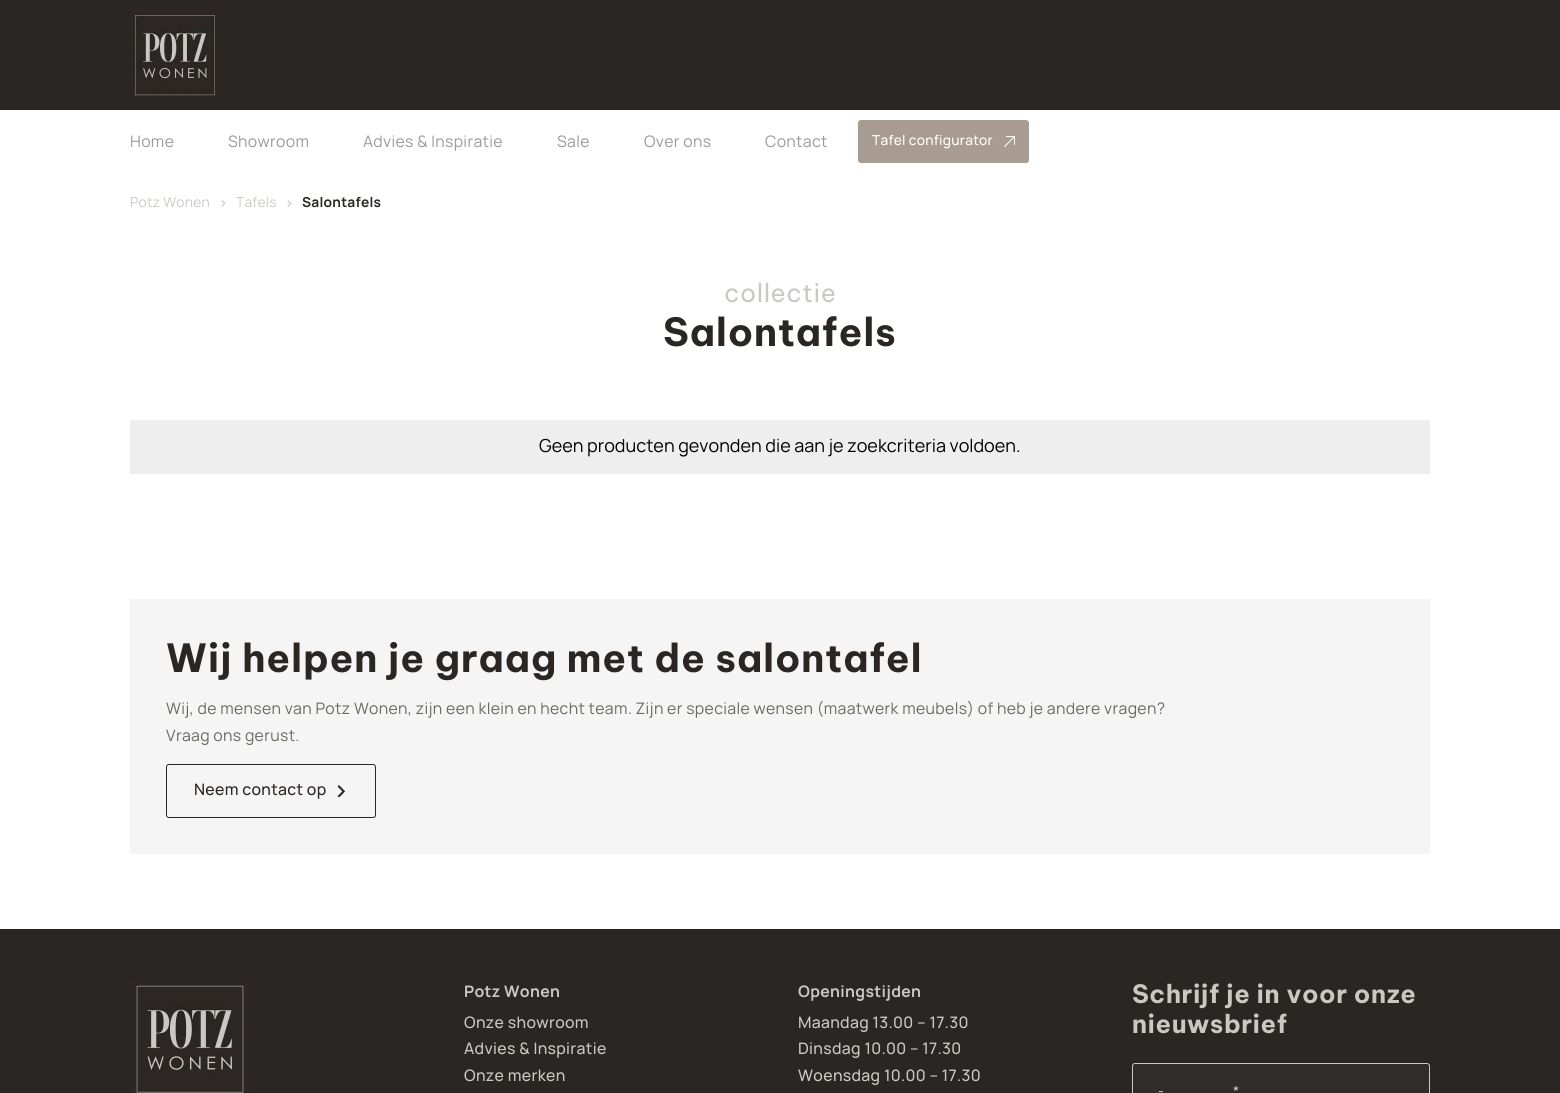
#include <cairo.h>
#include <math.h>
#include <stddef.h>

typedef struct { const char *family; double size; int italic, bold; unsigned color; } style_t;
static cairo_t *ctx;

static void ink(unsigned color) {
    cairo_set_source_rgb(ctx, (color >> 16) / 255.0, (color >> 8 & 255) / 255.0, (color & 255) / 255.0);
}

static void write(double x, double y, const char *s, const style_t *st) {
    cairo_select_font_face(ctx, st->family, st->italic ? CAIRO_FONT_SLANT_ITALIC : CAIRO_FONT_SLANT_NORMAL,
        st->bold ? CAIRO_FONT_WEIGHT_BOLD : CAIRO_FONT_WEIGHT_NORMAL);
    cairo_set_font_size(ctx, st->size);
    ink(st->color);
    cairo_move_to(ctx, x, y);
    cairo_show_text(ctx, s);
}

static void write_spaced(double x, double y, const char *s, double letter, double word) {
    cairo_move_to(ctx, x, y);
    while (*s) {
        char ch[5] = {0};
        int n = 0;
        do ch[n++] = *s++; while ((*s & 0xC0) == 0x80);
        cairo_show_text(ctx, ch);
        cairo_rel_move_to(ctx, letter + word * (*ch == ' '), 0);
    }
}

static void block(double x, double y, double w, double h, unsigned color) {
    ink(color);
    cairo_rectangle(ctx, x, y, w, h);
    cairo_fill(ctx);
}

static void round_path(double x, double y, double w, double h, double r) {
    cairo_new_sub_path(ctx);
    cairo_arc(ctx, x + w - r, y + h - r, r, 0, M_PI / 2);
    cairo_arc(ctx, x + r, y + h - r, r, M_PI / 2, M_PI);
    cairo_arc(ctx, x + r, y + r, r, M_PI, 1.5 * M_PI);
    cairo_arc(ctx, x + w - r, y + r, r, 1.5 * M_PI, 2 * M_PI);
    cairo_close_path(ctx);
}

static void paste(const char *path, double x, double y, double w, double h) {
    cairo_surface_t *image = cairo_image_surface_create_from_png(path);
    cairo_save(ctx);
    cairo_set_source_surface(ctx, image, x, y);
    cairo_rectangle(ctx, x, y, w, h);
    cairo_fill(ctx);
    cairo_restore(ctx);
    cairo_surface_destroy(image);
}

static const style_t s1 = {"Manrope", 18, 0, 0, 0x000000};

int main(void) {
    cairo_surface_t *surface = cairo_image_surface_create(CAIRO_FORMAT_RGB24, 1560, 1093);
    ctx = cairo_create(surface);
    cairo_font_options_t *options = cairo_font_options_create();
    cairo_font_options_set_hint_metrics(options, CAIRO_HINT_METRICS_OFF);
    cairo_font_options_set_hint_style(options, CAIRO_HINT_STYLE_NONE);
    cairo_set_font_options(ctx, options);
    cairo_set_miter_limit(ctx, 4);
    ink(0xffffff);
    cairo_paint(ctx);
    block(0, 0, 1560, 110, 0x2a2623);
    paste("pic1.png", 130, 10, 86, 86);
    cairo_select_font_face(ctx, "Manrope", CAIRO_FONT_SLANT_NORMAL, CAIRO_FONT_WEIGHT_NORMAL);
    cairo_set_font_size(ctx, 15.85);
    ink(0x9b9a97);
    write_spaced(130, 147, "Home", 0.32, 0);
    write_spaced(228, 147, "Showroom", 0.32, 0);
    write_spaced(363, 147, "Advies & Inspiratie", 0.32, 0);
    write_spaced(557, 147, "Sale", 0.32, 0);
    write_spaced(644, 147, "Over ons", 0.32, 0);
    write_spaced(765, 147, "Contact", 0.32, 0);
    ink(0xa89c90);
    round_path(858.5, 120.5, 170, 42, 2.5);
    cairo_fill_preserve(ctx);
    cairo_set_line_width(ctx, 1);
    cairo_stroke(ctx);
    cairo_select_font_face(ctx, "Manrope Medium", CAIRO_FONT_SLANT_NORMAL, CAIRO_FONT_WEIGHT_NORMAL);
    cairo_set_font_size(ctx, 13.75);
    ink(0xffffff);
    write_spaced(872, 145, "Tafel configurator", 0.25, 0);
    paste("pic2.png", 1004, 136, 11, 11);
    cairo_select_font_face(ctx, "Manrope", CAIRO_FONT_SLANT_NORMAL, CAIRO_FONT_WEIGHT_NORMAL);
    ink(0xc9c9c4);
    write_spaced(130, 207, "Potz Wonen", 0.25, 0);
    paste("pic3.png", 221, 200, 5, 7);
    write_spaced(236, 207, "Tafels", 0.25, 0);
    paste("pic3.png", 287, 200, 5, 7);
    cairo_select_font_face(ctx, "Manrope", CAIRO_FONT_SLANT_NORMAL, CAIRO_FONT_WEIGHT_BOLD);
    ink(0x2a2623);
    write_spaced(302, 207, "Salontafels", 0.25, 0);
    cairo_select_font_face(ctx, "Be Vietnam Pro", CAIRO_FONT_SLANT_NORMAL, CAIRO_FONT_WEIGHT_NORMAL);
    cairo_set_font_size(ctx, 25.25);
    ink(0xc9c9c4);
    write_spaced(724, 302, "collectie", 0.5, 0);
    cairo_select_font_face(ctx, "Be Vietnam Pro", CAIRO_FONT_SLANT_NORMAL, CAIRO_FONT_WEIGHT_BOLD);
    cairo_set_font_size(ctx, 38.75);
    ink(0x2a2623);
    write_spaced(663, 346, "Salontafels", 0.75, 0);
    block(130, 420, 1300, 54, 0xeeeeee);
    write(539, 452, "Geen producten gevonden die aan je zoekcriteria voldoen.", &s1);
    block(130, 599, 1300, 255, 0xf5f5f5);
    cairo_select_font_face(ctx, "Be Vietnam Pro", CAIRO_FONT_SLANT_NORMAL, CAIRO_FONT_WEIGHT_BOLD);
    cairo_set_font_size(ctx, 38.75);
    ink(0x2a2623);
    write_spaced(166, 672, "Wij helpen je graag met de salontafel", 0.75, 0);
    cairo_select_font_face(ctx, "Manrope", CAIRO_FONT_SLANT_NORMAL, CAIRO_FONT_WEIGHT_NORMAL);
    cairo_set_font_size(ctx, 15.85);
    ink(0x696a62);
    write_spaced(166, 714, "Wij, de mensen van Potz Wonen, zijn een klein en hecht team. Zijn er speciale wensen (maatwerk meubels) of heb je andere vragen?", 0.32, 0);
    write_spaced(166, 741, "Vraag ons gerust.", 0.32, 0);
    round_path(166.5, 764.5, 209, 53, 2.5);
    ink(0x2a2623);
    cairo_stroke(ctx);
    cairo_select_font_face(ctx, "Manrope Medium", CAIRO_FONT_SLANT_NORMAL, CAIRO_FONT_WEIGHT_NORMAL);
    write_spaced(194, 795, "Neem contact op", 0.32, 0);
    paste("pic4.png", 337, 785, 8, 12);
    block(0, 929, 1560, 164, 0x2a2623);
    paste("pic5.png", 130, 979, 120, 114);
    cairo_select_font_face(ctx, "Manrope", CAIRO_FONT_SLANT_NORMAL, CAIRO_FONT_WEIGHT_BOLD);
    ink(0xc9c9c4);
    write_spaced(464, 997, "Potz Wonen", 0.32, 0);
    cairo_select_font_face(ctx, "Manrope Medium", CAIRO_FONT_SLANT_NORMAL, CAIRO_FONT_WEIGHT_NORMAL);
    write_spaced(464, 1028, "Onze showroom", 0.32, 0);
    write_spaced(464, 1054, "Advies & Inspiratie", 0.32, 0);
    write_spaced(464, 1081, "Onze merken", 0.32, 0);
    cairo_select_font_face(ctx, "Manrope", CAIRO_FONT_SLANT_NORMAL, CAIRO_FONT_WEIGHT_BOLD);
    write_spaced(798, 997, "Openingstijden", 0.32, 0);
    cairo_select_font_face(ctx, "Manrope Medium", CAIRO_FONT_SLANT_NORMAL, CAIRO_FONT_WEIGHT_NORMAL);
    write_spaced(798, 1028, "Maandag 13.00 – 17.30", 0.32, 0);
    write_spaced(798, 1054, "Dinsdag 10.00 – 17.30", 0.32, 0);
    write_spaced(798, 1081, "Woensdag 10.00 – 17.30", 0.32, 0);
    cairo_select_font_face(ctx, "Be Vietnam Pro", CAIRO_FONT_SLANT_NORMAL, CAIRO_FONT_WEIGHT_BOLD);
    cairo_set_font_size(ctx, 25.25);
    write_spaced(1132, 1003, "Schrijf je in voor onze", 0.5, 0);
    write_spaced(1132, 1033, "nieuwsbrief", 0.5, 0);
    ink(0x302c29);
    round_path(1132.5, 1063.5, 297, 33, 2.5);
    cairo_fill_preserve(ctx);
    ink(0xc9c9c4);
    cairo_stroke(ctx);
    cairo_select_font_face(ctx, "Manrope Medium", CAIRO_FONT_SLANT_NORMAL, CAIRO_FONT_WEIGHT_NORMAL);
    cairo_set_font_size(ctx, 13.75);
    write_spaced(1233, 1096, "*", 0.25, 0);
    write_spaced(1158, 1096, "-", 0.25, 0);
    cairo_surface_write_to_png(surface, "screenshot.png");
    cairo_font_options_destroy(options);
    cairo_destroy(ctx);
    cairo_surface_destroy(surface);
    return 0;
}
